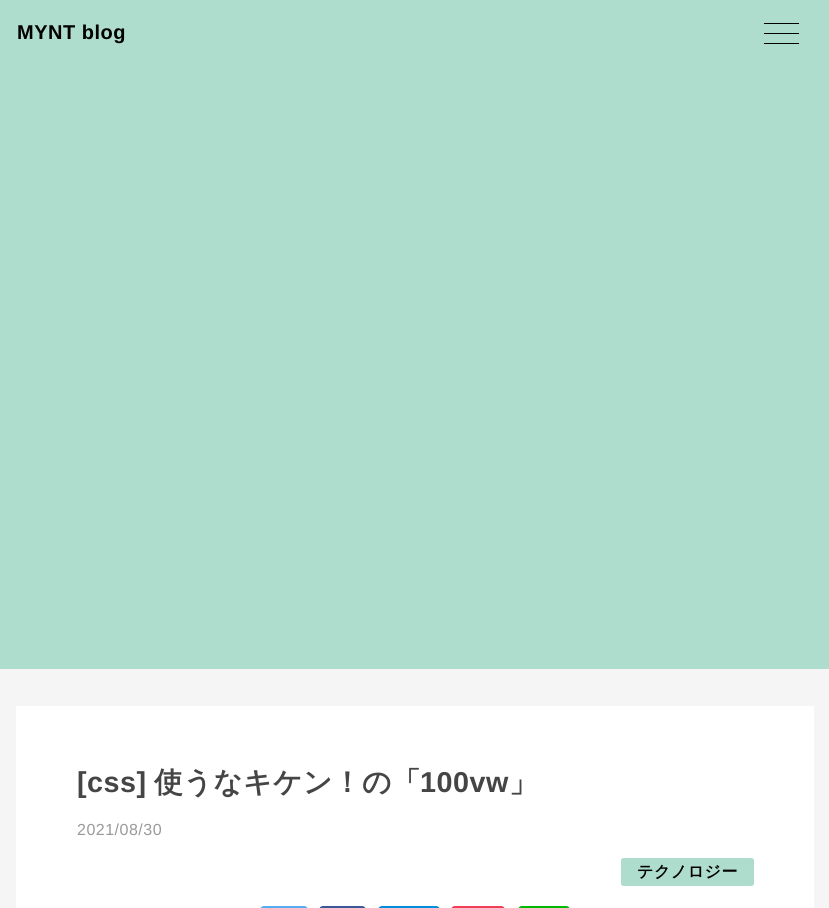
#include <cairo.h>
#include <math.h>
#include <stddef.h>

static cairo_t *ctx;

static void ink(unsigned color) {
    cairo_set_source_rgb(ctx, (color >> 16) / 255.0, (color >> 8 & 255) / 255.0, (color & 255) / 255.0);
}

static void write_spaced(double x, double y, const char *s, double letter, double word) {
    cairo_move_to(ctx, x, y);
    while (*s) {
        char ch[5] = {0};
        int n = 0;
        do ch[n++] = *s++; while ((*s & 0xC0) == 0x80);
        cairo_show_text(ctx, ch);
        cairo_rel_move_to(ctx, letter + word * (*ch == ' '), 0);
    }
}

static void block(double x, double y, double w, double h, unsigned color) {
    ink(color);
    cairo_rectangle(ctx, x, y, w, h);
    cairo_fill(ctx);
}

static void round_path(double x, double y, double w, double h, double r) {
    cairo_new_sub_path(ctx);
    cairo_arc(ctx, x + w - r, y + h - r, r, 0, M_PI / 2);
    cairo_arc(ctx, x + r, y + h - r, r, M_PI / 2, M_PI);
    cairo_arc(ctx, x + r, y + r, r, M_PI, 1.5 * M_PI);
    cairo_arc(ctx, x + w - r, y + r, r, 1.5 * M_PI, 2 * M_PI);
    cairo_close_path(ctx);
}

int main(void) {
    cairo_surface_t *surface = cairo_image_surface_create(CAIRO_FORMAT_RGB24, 829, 908);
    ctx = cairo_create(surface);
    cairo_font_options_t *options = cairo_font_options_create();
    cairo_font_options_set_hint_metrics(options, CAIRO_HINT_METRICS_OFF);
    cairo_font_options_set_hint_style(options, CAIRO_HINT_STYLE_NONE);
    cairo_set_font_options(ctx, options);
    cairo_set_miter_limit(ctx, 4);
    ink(0xf6f5f5);
    cairo_paint(ctx);
    block(0, 0, 829, 669, 0xaeddcd);
    cairo_select_font_face(ctx, "Liberation Sans", CAIRO_FONT_SLANT_NORMAL, CAIRO_FONT_WEIGHT_BOLD);
    cairo_set_font_size(ctx, 20);
    ink(0x000000);
    write_spaced(17, 39, "MYNT blog", 0.5, 0);
    block(764, 23, 35, 1, 0x000000);
    block(764, 33, 35, 1, 0x000000);
    block(764, 43, 35, 1, 0x000000);
    block(16, 706, 798, 202, 0xffffff);
    cairo_set_font_size(ctx, 28.75);
    ink(0x454545);
    write_spaced(77, 792, "[css]", 0.5, 0);
    cairo_select_font_face(ctx, "WenQuanYi Zen Hei", CAIRO_FONT_SLANT_NORMAL, CAIRO_FONT_WEIGHT_BOLD);
    write_spaced(154, 792, "使うなキケン！の「", 0.5, 0);
    cairo_select_font_face(ctx, "Liberation Sans", CAIRO_FONT_SLANT_NORMAL, CAIRO_FONT_WEIGHT_BOLD);
    write_spaced(420, 792, "100vw", 0.5, 0);
    cairo_select_font_face(ctx, "WenQuanYi Zen Hei", CAIRO_FONT_SLANT_NORMAL, CAIRO_FONT_WEIGHT_BOLD);
    write_spaced(509, 792, "」", 0.5, 0);
    cairo_select_font_face(ctx, "Liberation Sans", CAIRO_FONT_SLANT_NORMAL, CAIRO_FONT_WEIGHT_NORMAL);
    cairo_set_font_size(ctx, 16);
    ink(0x999999);
    write_spaced(77, 835, "2021/08/30", 0.5, 0);
    ink(0xaeddcd);
    round_path(621, 858, 133, 28, 2.5);
    cairo_fill(ctx);
    cairo_select_font_face(ctx, "WenQuanYi Zen Hei", CAIRO_FONT_SLANT_NORMAL, CAIRO_FONT_WEIGHT_BOLD);
    ink(0x000000);
    write_spaced(637, 877, "テクノロジー", 0.5, 0);
    ink(0x55acee);
    round_path(260, 906, 48, 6, 4);
    cairo_fill(ctx);
    ink(0x3b5998);
    round_path(319, 906, 47, 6, 4);
    cairo_fill(ctx);
    ink(0x008fde);
    round_path(378, 906, 62, 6, 4);
    cairo_fill(ctx);
    ink(0xef3f56);
    round_path(451, 906, 54, 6, 4);
    cairo_fill(ctx);
    ink(0x00b900);
    round_path(518, 906, 52, 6, 4);
    cairo_fill(ctx);
    cairo_surface_write_to_png(surface, "screenshot.png");
    cairo_font_options_destroy(options);
    cairo_destroy(ctx);
    cairo_surface_destroy(surface);
    return 0;
}
